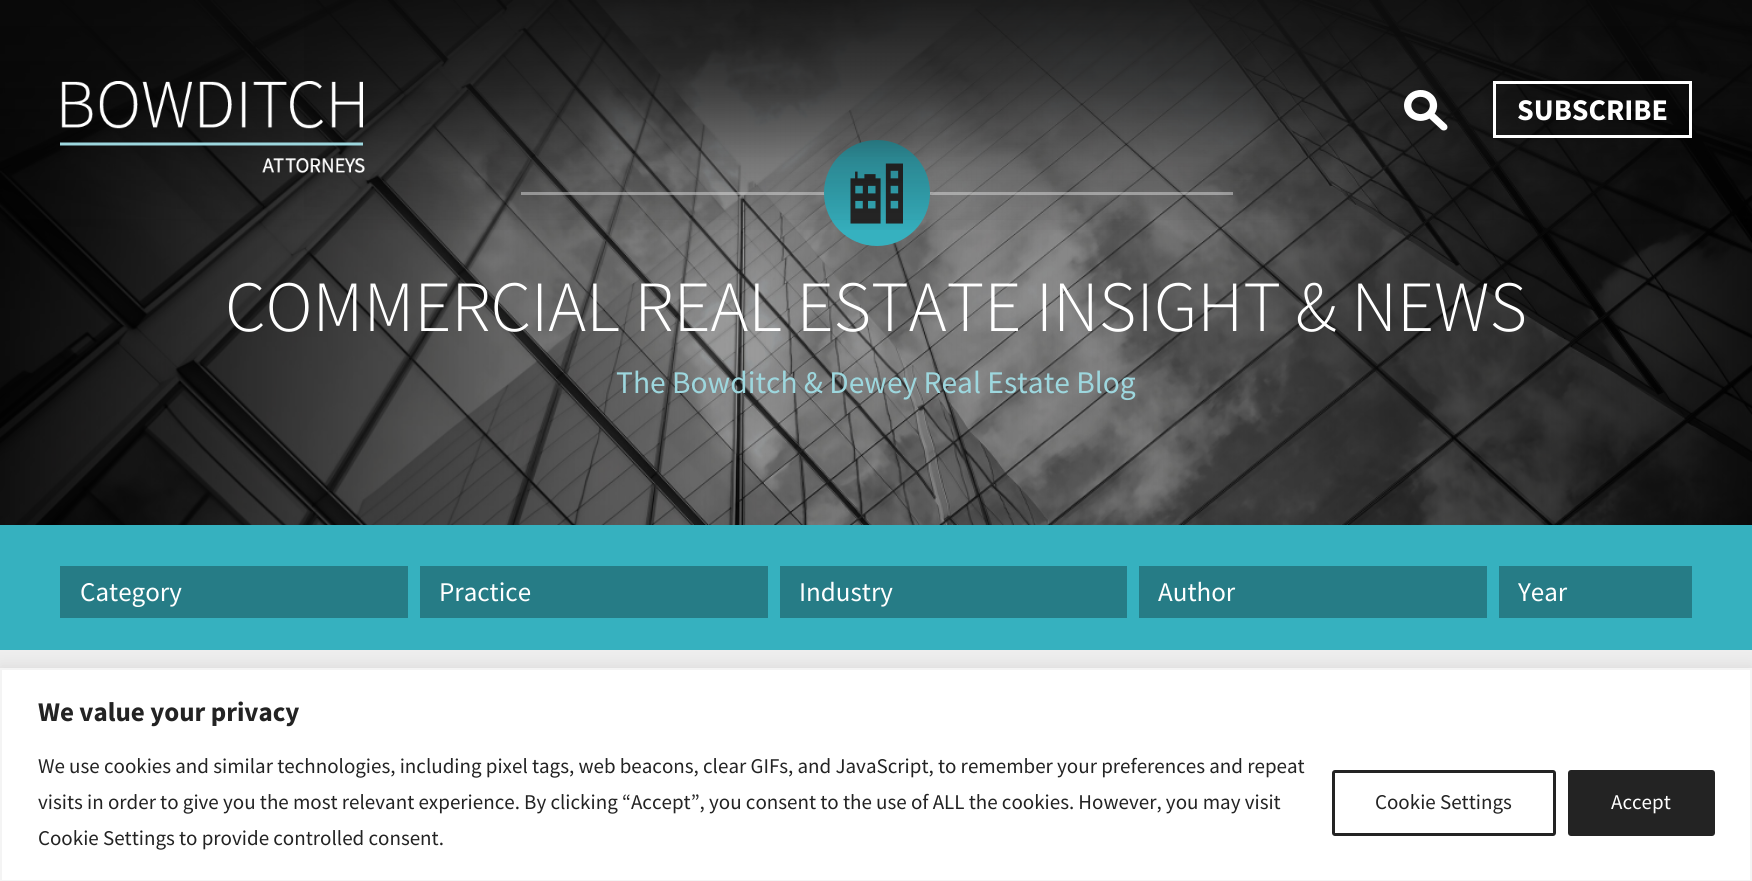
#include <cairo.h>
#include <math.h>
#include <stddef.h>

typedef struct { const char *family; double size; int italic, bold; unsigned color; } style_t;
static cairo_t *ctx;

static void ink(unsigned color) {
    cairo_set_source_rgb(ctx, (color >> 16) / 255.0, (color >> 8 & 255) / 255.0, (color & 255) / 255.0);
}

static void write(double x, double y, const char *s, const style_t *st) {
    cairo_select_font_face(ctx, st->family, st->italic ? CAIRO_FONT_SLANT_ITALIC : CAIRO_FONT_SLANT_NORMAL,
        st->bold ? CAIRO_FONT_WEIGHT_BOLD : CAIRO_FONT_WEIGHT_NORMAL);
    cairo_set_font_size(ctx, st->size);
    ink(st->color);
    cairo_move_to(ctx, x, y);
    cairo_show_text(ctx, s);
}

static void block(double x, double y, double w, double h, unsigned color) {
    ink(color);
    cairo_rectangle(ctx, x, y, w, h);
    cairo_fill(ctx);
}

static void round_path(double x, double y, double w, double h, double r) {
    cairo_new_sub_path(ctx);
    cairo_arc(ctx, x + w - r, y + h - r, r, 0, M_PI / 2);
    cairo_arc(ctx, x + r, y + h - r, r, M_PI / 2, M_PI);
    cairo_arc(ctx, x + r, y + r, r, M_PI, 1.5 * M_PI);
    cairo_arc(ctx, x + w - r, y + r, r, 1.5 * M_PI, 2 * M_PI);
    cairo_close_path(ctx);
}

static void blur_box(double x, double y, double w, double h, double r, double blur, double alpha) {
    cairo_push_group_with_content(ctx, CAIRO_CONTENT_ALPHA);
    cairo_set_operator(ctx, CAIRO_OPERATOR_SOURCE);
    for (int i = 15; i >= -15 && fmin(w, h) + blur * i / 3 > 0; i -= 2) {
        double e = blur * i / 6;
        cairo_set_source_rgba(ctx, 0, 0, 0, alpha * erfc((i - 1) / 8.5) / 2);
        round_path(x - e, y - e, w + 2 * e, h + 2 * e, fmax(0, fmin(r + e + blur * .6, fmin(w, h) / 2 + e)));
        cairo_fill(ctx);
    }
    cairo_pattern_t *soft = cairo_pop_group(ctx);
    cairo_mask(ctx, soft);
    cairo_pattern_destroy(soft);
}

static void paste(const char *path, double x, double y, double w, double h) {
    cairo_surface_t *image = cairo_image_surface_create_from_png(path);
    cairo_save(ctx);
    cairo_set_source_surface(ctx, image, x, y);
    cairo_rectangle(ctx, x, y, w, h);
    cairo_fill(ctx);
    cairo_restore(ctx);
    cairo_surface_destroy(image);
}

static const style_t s1 = {"Source Sans Pro", 30, 0, 1, 0xffffff};
static const style_t s2 = {"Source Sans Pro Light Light", 72, 0, 0, 0xffffff};
static const style_t s3 = {"Source Sans Pro", 31.5, 0, 0, 0x9dd7de};
static const style_t s4 = {"Source Sans Pro", 27, 0, 0, 0xffffff};
static const style_t s5 = {"Source Sans Pro", 27, 0, 1, 0x232323};
static const style_t s6 = {"Source Sans Pro", 21, 0, 0, 0x232323};
static const style_t s7 = {"Source Sans Pro", 21, 0, 0, 0xffffff};

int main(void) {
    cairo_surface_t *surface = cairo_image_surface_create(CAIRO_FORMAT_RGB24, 1752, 881);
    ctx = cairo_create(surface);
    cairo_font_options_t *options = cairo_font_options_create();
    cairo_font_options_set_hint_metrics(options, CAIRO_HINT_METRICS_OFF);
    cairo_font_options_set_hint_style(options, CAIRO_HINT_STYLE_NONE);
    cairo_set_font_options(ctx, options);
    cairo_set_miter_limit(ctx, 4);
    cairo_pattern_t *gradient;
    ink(0x36b1bf);
    cairo_paint(ctx);
    paste("pic3.png", 0, 0, 1752, 525);
    cairo_set_source_rgba(ctx, 1, 1, 1, 0.5);
    cairo_rectangle(ctx, 521, 192, 712, 3);
    cairo_fill(ctx);
    ink(0x36b1bf);
    cairo_arc(ctx, 877, 193, 53, 0, 2 * M_PI);
    cairo_fill(ctx);
    paste("pic4.png", 850, 163, 53, 61);
    gradient = cairo_pattern_create_linear(876, 0, 876, 239);
    cairo_pattern_add_color_stop_rgba(gradient, 0, 0.039, 0.039, 0.039, 0.83);
    cairo_pattern_add_color_stop_rgba(gradient, 0.33, 0.039, 0.039, 0.039, 0.6);
    cairo_pattern_add_color_stop_rgba(gradient, 0.67, 0.039, 0.039, 0.039, 0.2);
    cairo_pattern_add_color_stop_rgba(gradient, 1, 0.039, 0.039, 0.039, 0);
    cairo_set_source(ctx, gradient);
    cairo_pattern_destroy(gradient);
    cairo_rectangle(ctx, 0, 0, 1752, 230);
    cairo_fill(ctx);
    gradient = cairo_pattern_create_linear(876, 0, 876, 257);
    cairo_pattern_add_color_stop_rgba(gradient, 0, 0.039, 0.039, 0.039, 0.22);
    cairo_pattern_add_color_stop_rgba(gradient, 0.33, 0.039, 0.039, 0.039, 0.16);
    cairo_pattern_add_color_stop_rgba(gradient, 0.67, 0.039, 0.039, 0.039, 0.05);
    cairo_pattern_add_color_stop_rgba(gradient, 1, 0.039, 0.039, 0.039, 0);
    cairo_set_source(ctx, gradient);
    cairo_pattern_destroy(gradient);
    cairo_rectangle(ctx, 304, 0, 1190, 220);
    cairo_fill(ctx);
    paste("pic1.png", 60, 81, 305, 93);
    paste("pic2.png", 1404, 90, 44, 41);
    cairo_rectangle(ctx, 1494.5, 82.5, 196, 54);
    ink(0xffffff);
    cairo_set_line_width(ctx, 3);
    cairo_stroke(ctx);
    write(1517, 120, "SUBSCRIBE", &s1);
    write(225, 331, "COMMERCIAL REAL ESTATE INSIGHT & NEWS", &s2);
    write(616, 393, "The Bowditch & Dewey Real Estate Blog", &s3);
    block(60, 566, 348, 52, 0x267c86);
    write(80, 601, "Category", &s4);
    block(420, 566, 348, 52, 0x267c86);
    write(439, 601, "Practice", &s4);
    block(780, 566, 347, 52, 0x267c86);
    write(799, 601, "Industry", &s4);
    block(1139, 566, 348, 52, 0x267c86);
    write(1158, 601, "Author", &s4);
    block(1499, 566, 193, 52, 0x267c86);
    write(1518, 601, "Year", &s4);
    block(0, 650, 1752, 18, 0xeeeeee);
    ink(0xacabab);
    blur_box(0, 666, 1752, 215, 0, 7.5, 0.3);
    ink(0xffffff);
    cairo_rectangle(ctx, 1, 669, 1750, 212);
    cairo_fill_preserve(ctx);
    ink(0xf4f4f4);
    cairo_set_line_width(ctx, 2);
    cairo_stroke(ctx);
    write(38, 721, "We value your privacy", &s5);
    write(38, 773, "We use cookies and similar technologies, including pixel tags, web beacons, clear GIFs, and JavaScript, to remember your preferences and repeat", &s6);
    write(38, 809, "visits in order to give you the most relevant experience. By clicking “Accept”, you consent to the use of ALL the cookies. However, you may visit", &s6);
    write(38, 845, "Cookie Settings to provide controlled consent.", &s6);
    round_path(1333.5, 771.5, 221, 63, 1.5);
    cairo_set_line_width(ctx, 3);
    cairo_stroke(ctx);
    write(1375, 809, "Cookie Settings", &s6);
    round_path(1569.5, 771.5, 144, 63, 1.5);
    cairo_fill_preserve(ctx);
    cairo_stroke(ctx);
    write(1611, 809, "Accept", &s7);
    cairo_surface_write_to_png(surface, "screenshot.png");
    cairo_font_options_destroy(options);
    cairo_destroy(ctx);
    cairo_surface_destroy(surface);
    return 0;
}
